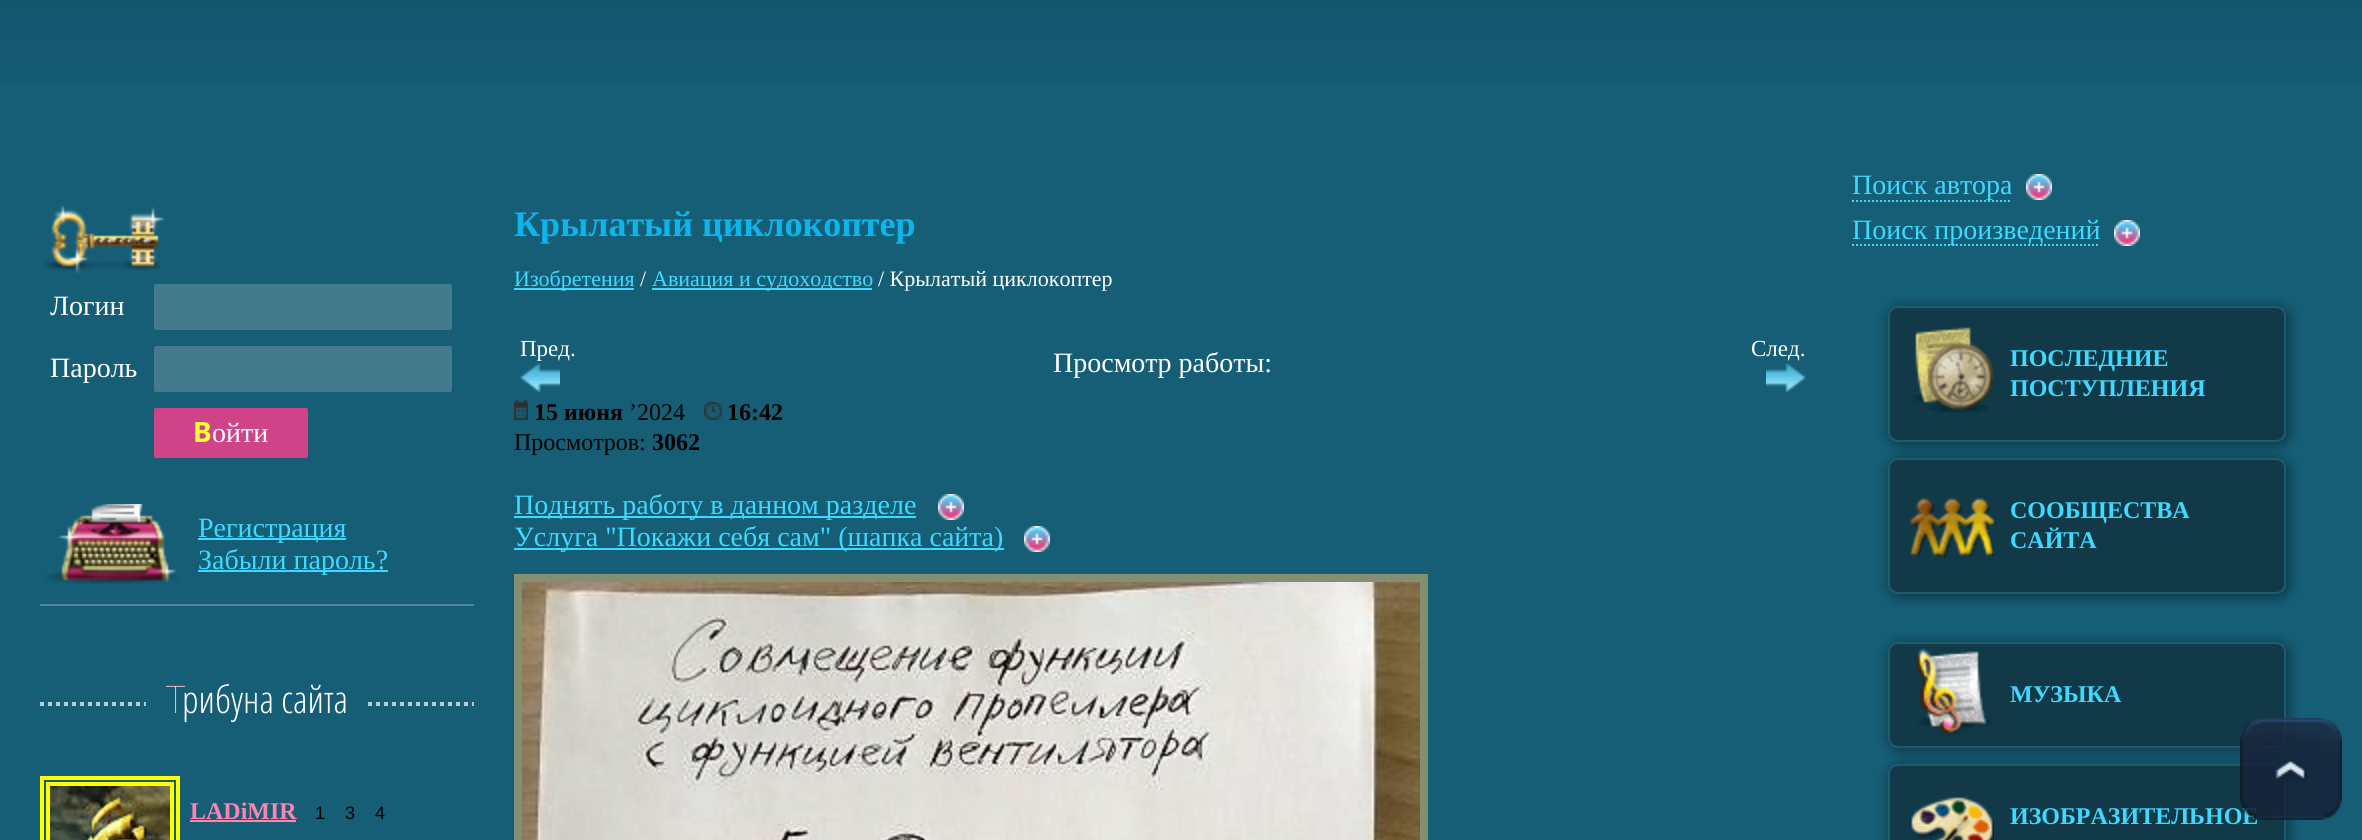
#include <cairo.h>
#include <math.h>
#include <stddef.h>

typedef struct { const char *family; double size; int italic, bold; unsigned color; } style_t;
static cairo_t *ctx;

static void ink(unsigned color) {
    cairo_set_source_rgb(ctx, (color >> 16) / 255.0, (color >> 8 & 255) / 255.0, (color & 255) / 255.0);
}

static void write(double x, double y, const char *s, const style_t *st) {
    cairo_select_font_face(ctx, st->family, st->italic ? CAIRO_FONT_SLANT_ITALIC : CAIRO_FONT_SLANT_NORMAL,
        st->bold ? CAIRO_FONT_WEIGHT_BOLD : CAIRO_FONT_WEIGHT_NORMAL);
    cairo_set_font_size(ctx, st->size);
    ink(st->color);
    cairo_move_to(ctx, x, y);
    cairo_show_text(ctx, s);
}

static void block(double x, double y, double w, double h, unsigned color) {
    ink(color);
    cairo_rectangle(ctx, x, y, w, h);
    cairo_fill(ctx);
}

static void round_path(double x, double y, double w, double h, double r) {
    cairo_new_sub_path(ctx);
    cairo_arc(ctx, x + w - r, y + h - r, r, 0, M_PI / 2);
    cairo_arc(ctx, x + r, y + h - r, r, M_PI / 2, M_PI);
    cairo_arc(ctx, x + r, y + r, r, M_PI, 1.5 * M_PI);
    cairo_arc(ctx, x + w - r, y + r, r, 1.5 * M_PI, 2 * M_PI);
    cairo_close_path(ctx);
}

static void blur_box(double x, double y, double w, double h, double r, double blur, double alpha) {
    cairo_push_group_with_content(ctx, CAIRO_CONTENT_ALPHA);
    cairo_set_operator(ctx, CAIRO_OPERATOR_SOURCE);
    for (int i = 15; i >= -15 && fmin(w, h) + blur * i / 3 > 0; i -= 2) {
        double e = blur * i / 6;
        cairo_set_source_rgba(ctx, 0, 0, 0, alpha * erfc((i - 1) / 8.5) / 2);
        round_path(x - e, y - e, w + 2 * e, h + 2 * e, fmax(0, fmin(r + e + blur * .6, fmin(w, h) / 2 + e)));
        cairo_fill(ctx);
    }
    cairo_pattern_t *soft = cairo_pop_group(ctx);
    cairo_mask(ctx, soft);
    cairo_pattern_destroy(soft);
}

static void paste(const char *path, double x, double y, double w, double h) {
    cairo_surface_t *image = cairo_image_surface_create_from_png(path);
    cairo_save(ctx);
    cairo_set_source_surface(ctx, image, x, y);
    cairo_rectangle(ctx, x, y, w, h);
    cairo_fill(ctx);
    cairo_restore(ctx);
    cairo_surface_destroy(image);
}

static const style_t s1 = {"Liberation Serif", 28, 0, 0, 0xffffff};
static const style_t s2 = {"Noto Sans", 28, 0, 1, 0xffff33};
static const style_t s3 = {"Liberation Serif", 28, 0, 0, 0x3fd9ff};
static const style_t s4 = {"Noto Sans Thin", 38, 0, 0, 0xfcbed4};
static const style_t s5 = {"Open Sans Condensed Light", 38, 0, 0, 0xffffff};
static const style_t s6 = {"Liberation Serif", 24, 0, 1, 0xff84b0};
static const style_t s7 = {"Liberation Sans", 18, 0, 0, 0x000000};
static const style_t s8 = {"Liberation Serif", 36, 0, 1, 0x0cb5ec};
static const style_t s9 = {"Liberation Serif", 22, 0, 0, 0x3fd9ff};
static const style_t s10 = {"Liberation Serif", 22, 0, 0, 0xffffff};
static const style_t s11 = {"Liberation Serif", 23, 0, 0, 0xffffff};
static const style_t s12 = {"Liberation Serif", 24, 0, 1, 0x000000};
static const style_t s13 = {"Liberation Serif", 24, 0, 0, 0x000000};
static const style_t s14 = {"Liberation Serif", 24, 0, 1, 0x3fd9ff};

int main(void) {
    cairo_surface_t *surface = cairo_image_surface_create(CAIRO_FORMAT_RGB24, 2362, 840);
    ctx = cairo_create(surface);
    cairo_font_options_t *options = cairo_font_options_create();
    cairo_font_options_set_hint_metrics(options, CAIRO_HINT_METRICS_OFF);
    cairo_font_options_set_hint_style(options, CAIRO_HINT_STYLE_NONE);
    cairo_set_font_options(ctx, options);
    cairo_set_miter_limit(ctx, 4);
    ink(0x155e76);
    cairo_paint(ctx);
    paste("pic1.png", 0, 0, 2362, 85);
    paste("pic2.png", 44, 205, 120, 69);
    write(50, 315, "Логин", &s1);
    ink(0x437a8c);
    round_path(154, 284, 298, 46, 2);
    cairo_fill(ctx);
    write(50, 377, "Пароль", &s1);
    ink(0x437a8c);
    round_path(154, 346, 298, 46, 2);
    cairo_fill(ctx);
    ink(0xcf4488);
    round_path(154, 408, 154, 50, 2);
    cairo_fill(ctx);
    write(193, 442, "В", &s2);
    write(212, 442, "ойти", &s1);
    paste("pic3.png", 45, 504, 134, 80);
    block(198, 538, 148, 2, 0x3fd9ff);
    write(198, 537, "Регистрация", &s3);
    block(198, 570, 190, 2, 0x3fd9ff);
    write(198, 569, "Забыли пароль?", &s3);
    block(40, 604, 434, 2, 0x508698);
    cairo_new_path(ctx);
    cairo_move_to(ctx, 40, 704);
    cairo_line_to(ctx, 474, 704);
    ink(0xb9cfd6);
    cairo_set_line_width(ctx, 4);
    cairo_set_dash(ctx, (double[]){4, 4}, 2, 0);
    cairo_stroke(ctx);
    ink(0x155e76);
    round_path(146, 672, 222, 52, 6);
    cairo_fill(ctx);
    write(166, 713, "Т", &s4);
    write(182, 713, "рибуна сайта", &s5);
    cairo_rectangle(ctx, 42, 778, 136, 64);
    ink(0xffff00);
    cairo_set_dash(ctx, NULL, 0, 0);
    cairo_stroke(ctx);
    cairo_rectangle(ctx, 48, 784, 124, 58);
    cairo_stroke(ctx);
    paste("pic4.png", 50, 786, 120, 54);
    write(190, 819, "LADiMIR", &s6);
    block(190, 820, 106, 2, 0xff84b0);
    write(315, 819, "1", &s7);
    write(345, 819, "3", &s7);
    write(375, 819, "4", &s7);
    write(514, 236, "Крылатый циклокоптер", &s8);
    block(514, 288, 120, 2, 0x3fd9ff);
    write(514, 286, "Изобретения", &s9);
    write(640, 286, "/", &s10);
    block(652, 288, 220, 2, 0x3fd9ff);
    write(652, 286, "Авиация и судоходство", &s9);
    write(878, 286, "/ Крылатый циклокоптер", &s10);
    write(520, 356, "Пред.", &s11);
    paste("pic5.png", 520, 363, 40, 29);
    write(1053, 372, "Просмотр работы:", &s1);
    write(1751, 356, "След.", &s11);
    paste("pic6.png", 1766, 363, 40, 29);
    paste("pic7.png", 514, 400, 14, 20);
    write(534, 420, "15 июня", &s12);
    write(629, 420, "’2024", &s13);
    paste("pic8.png", 704, 402, 18, 18);
    write(727, 420, "16:42", &s12);
    write(514, 450, "Просмотров:", &s13);
    write(652, 450, "3062", &s12);
    block(514, 516, 402, 2, 0x3fd9ff);
    write(514, 514, "Поднять работу в данном разделе", &s3);
    paste("pic9.png", 938, 494, 26, 26);
    block(514, 548, 490, 2, 0x3fd9ff);
    write(514, 546, "Услуга \"Покажи себя сам\" (шапка сайта)", &s3);
    paste("pic9.png", 1024, 526, 26, 26);
    cairo_rectangle(ctx, 518, 578, 906, 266);
    ink(0x848e71);
    cairo_set_line_width(ctx, 8);
    cairo_stroke(ctx);
    paste("pic10.png", 522, 582, 898, 258);
    write(1852, 194, "Поиск автора", &s3);
    cairo_new_path(ctx);
    cairo_move_to(ctx, 1852, 201);
    cairo_line_to(ctx, 2012, 201);
    cairo_set_line_width(ctx, 2);
    cairo_set_dash(ctx, (double[]){2, 2}, 2, 0);
    cairo_stroke(ctx);
    paste("pic9.png", 2026, 174, 26, 26);
    cairo_new_path(ctx);
    cairo_move_to(ctx, 1852, 245);
    cairo_line_to(ctx, 2100, 245);
    cairo_stroke(ctx);
    write(1852, 239, "Поиск произведений", &s3);
    paste("pic9.png", 2114, 220, 26, 26);
    ink(0x000000);
    blur_box(1890, 308, 398, 136, 10, 7, 0.5);
    ink(0x113948);
    round_path(1889, 307, 396, 134, 9);
    cairo_fill_preserve(ctx);
    ink(0x1f5b6f);
    cairo_set_dash(ctx, NULL, 0, 0);
    cairo_stroke(ctx);
    paste("pic11.png", 1910, 327, 84, 86);
    write(2010, 366, "ПОСЛЕДНИЕ", &s14);
    write(2010, 396, "ПОСТУПЛЕНИЯ", &s14);
    ink(0x000000);
    blur_box(1890, 460, 398, 136, 10, 7, 0.5);
    ink(0x113948);
    round_path(1889, 459, 396, 134, 9);
    cairo_fill_preserve(ctx);
    ink(0x1f5b6f);
    cairo_stroke(ctx);
    paste("pic12.png", 1910, 497, 84, 61);
    write(2010, 518, "СООБЩЕСТВА", &s14);
    write(2010, 548, "САЙТА", &s14);
    ink(0x000000);
    blur_box(1890, 644, 398, 106, 10, 7, 0.5);
    ink(0x113948);
    round_path(1889, 643, 396, 104, 9);
    cairo_fill_preserve(ctx);
    ink(0x1f5b6f);
    cairo_stroke(ctx);
    paste("pic13.png", 1915, 648, 77, 87);
    write(2010, 702, "МУЗЫКА", &s14);
    ink(0x000000);
    blur_box(1890, 766, 398, 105, 10, 7, 0.5);
    ink(0x113948);
    round_path(1889, 765, 396, 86, 9);
    cairo_fill_preserve(ctx);
    ink(0x1f5b6f);
    cairo_stroke(ctx);
    paste("pic14.png", 1911, 797, 83, 43);
    write(2010, 824, "ИЗОБРАЗИТЕЛЬНОЕ", &s14);
    paste("pic15.png", 2240, 718, 102, 102);
    cairo_surface_write_to_png(surface, "screenshot.png");
    cairo_font_options_destroy(options);
    cairo_destroy(ctx);
    cairo_surface_destroy(surface);
    return 0;
}
